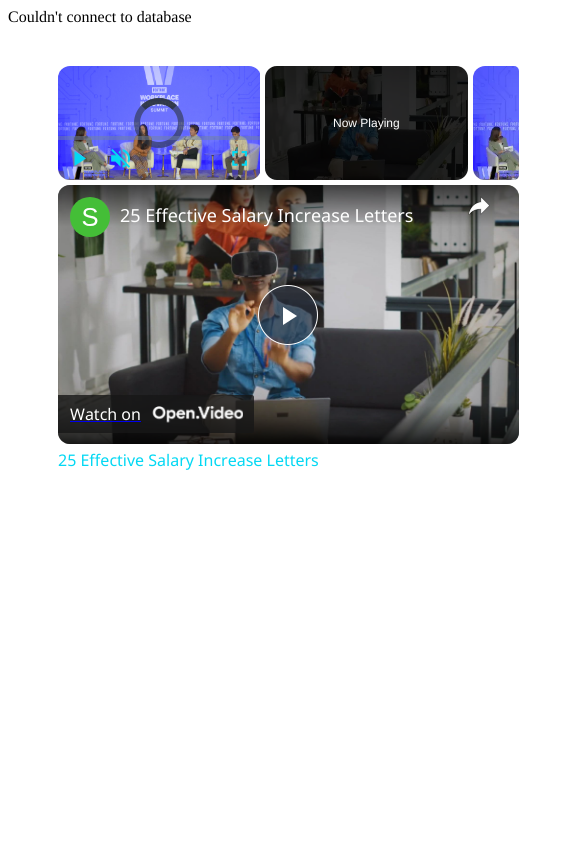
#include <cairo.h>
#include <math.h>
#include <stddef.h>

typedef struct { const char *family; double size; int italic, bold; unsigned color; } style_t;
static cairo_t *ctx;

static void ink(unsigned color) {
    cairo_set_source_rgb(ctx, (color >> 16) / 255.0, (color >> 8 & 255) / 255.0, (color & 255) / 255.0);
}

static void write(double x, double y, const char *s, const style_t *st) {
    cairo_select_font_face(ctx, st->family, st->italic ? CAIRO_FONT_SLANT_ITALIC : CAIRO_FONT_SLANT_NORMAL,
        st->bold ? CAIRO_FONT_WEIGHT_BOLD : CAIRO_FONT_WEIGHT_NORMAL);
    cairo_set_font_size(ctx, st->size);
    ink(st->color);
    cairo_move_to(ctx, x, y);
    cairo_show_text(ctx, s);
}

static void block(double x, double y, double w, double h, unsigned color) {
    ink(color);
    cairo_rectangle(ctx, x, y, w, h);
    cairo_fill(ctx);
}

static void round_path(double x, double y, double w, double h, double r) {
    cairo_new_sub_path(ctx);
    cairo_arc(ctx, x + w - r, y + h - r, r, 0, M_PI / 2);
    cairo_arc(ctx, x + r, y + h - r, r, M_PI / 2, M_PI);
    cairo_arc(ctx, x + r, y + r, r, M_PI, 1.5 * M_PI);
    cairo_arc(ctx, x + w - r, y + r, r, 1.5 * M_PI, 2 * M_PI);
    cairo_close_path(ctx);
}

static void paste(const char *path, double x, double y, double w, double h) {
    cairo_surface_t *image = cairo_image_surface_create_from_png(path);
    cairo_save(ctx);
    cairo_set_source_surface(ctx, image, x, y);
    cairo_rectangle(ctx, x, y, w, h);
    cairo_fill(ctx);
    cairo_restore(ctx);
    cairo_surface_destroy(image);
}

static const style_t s1 = {"Liberation Serif", 16, 0, 0, 0x000000};
static const style_t s2 = {"Liberation Sans", 12, 0, 0, 0xffffff};
static const style_t s3 = {"Noto Sans", 18, 0, 0, 0xffffff};
static const style_t s4 = {"Noto Sans", 16, 0, 0, 0xffffff};
static const style_t s5 = {"Noto Sans", 16, 0, 0, 0x03d8f3};

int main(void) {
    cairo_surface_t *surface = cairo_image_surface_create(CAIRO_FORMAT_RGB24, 576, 858);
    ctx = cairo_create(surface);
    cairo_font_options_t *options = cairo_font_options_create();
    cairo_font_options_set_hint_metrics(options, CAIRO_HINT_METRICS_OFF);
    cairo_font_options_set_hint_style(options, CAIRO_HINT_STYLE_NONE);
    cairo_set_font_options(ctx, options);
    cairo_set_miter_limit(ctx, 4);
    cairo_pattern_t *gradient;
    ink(0xffffff);
    cairo_paint(ctx);
    write(8, 22, "Couldn't connect to database", &s1);
    paste("pic1.png", 58, 66, 202, 114);
    cairo_arc(ctx, 159, 123, 22, 0, 2 * M_PI);
    cairo_set_source_rgba(ctx, 0.169, 0.2, 0.247, 0.59);
    cairo_set_line_width(ctx, 6);
    cairo_stroke(ctx);
    cairo_new_path(ctx);
    cairo_move_to(ctx, 143.5, 107.5);
    cairo_curve_to(ctx, 152, 99, 166, 99, 174.5, 107.5);
    cairo_stroke(ctx);
    cairo_new_path(ctx);
    cairo_move_to(ctx, 143.5, 107.5);
    cairo_curve_to(ctx, 152, 99, 166, 99, 174.5, 107.5);
    cairo_stroke(ctx);
    cairo_set_source_rgba(ctx, 0.451, 0.522, 0.624, 0.5);
    cairo_rectangle(ctx, 58, 136, 202, 4);
    cairo_fill(ctx);
    ink(0x03d8f3);
    cairo_new_path(ctx);
    cairo_move_to(ctx, 74.5, 151);
    cairo_line_to(ctx, 74.5, 166);
    cairo_line_to(ctx, 86, 158.5);
    cairo_close_path(ctx);
    cairo_fill(ctx);
    paste("pic2.png", 111, 149, 19, 19);
    paste("pic3.png", 232, 151, 15, 15);
    ink(0x000000);
    round_path(265, 66, 203, 114, 12);
    cairo_fill(ctx);
    paste("pic4.png", 265, 66, 203, 114);
    write(333, 127, "Now Playing", &s2);
    paste("pic5.png", 473, 66, 46, 114);
    paste("pic6.png", 58, 185, 461, 259);
    paste("pic7.png", 58, 185, 461, 259);
    cairo_set_source_rgba(ctx, 0.169, 0.2, 0.247, 0.7);
    cairo_arc(ctx, 288, 315, 29.5, 0, 2 * M_PI);
    cairo_fill_preserve(ctx);
    ink(0xffffff);
    cairo_set_line_width(ctx, 1);
    cairo_stroke(ctx);
    cairo_new_path(ctx);
    cairo_move_to(ctx, 283, 307);
    cairo_line_to(ctx, 283, 325);
    cairo_line_to(ctx, 297, 316);
    cairo_close_path(ctx);
    cairo_fill(ctx);
    gradient = cairo_pattern_create_linear(289, 185, 289, 444);
    cairo_pattern_add_color_stop_rgba(gradient, 0, 0, 0, 0, 0.6);
    cairo_pattern_add_color_stop_rgba(gradient, 0.16, 0, 0, 0, 0);
    cairo_pattern_add_color_stop_rgba(gradient, 0.84, 0, 0, 0, 0);
    cairo_pattern_add_color_stop_rgba(gradient, 1, 0, 0, 0, 0.8);
    cairo_set_source(ctx, gradient);
    cairo_pattern_destroy(gradient);
    round_path(58, 185, 461, 259, 12);
    cairo_fill(ctx);
    paste("pic8.png", 70, 197, 40, 40);
    write(120, 222, "25 Effective Salary Increase Letters", &s3);
    paste("pic9.png", 468, 196, 22, 20);
    cairo_set_source_rgba(ctx, 0.09, 0.09, 0.09, 0.8);
    cairo_new_path(ctx);
    cairo_move_to(ctx, 58, 395);
    cairo_line_to(ctx, 252, 395);
    cairo_curve_to(ctx, 253, 395, 254, 396, 254, 397);
    cairo_line_to(ctx, 254, 431);
    cairo_curve_to(ctx, 254, 432, 253, 433, 252, 433);
    cairo_line_to(ctx, 58, 433);
    cairo_close_path(ctx);
    cairo_fill(ctx);
    write(70, 420, "Watch on", &s4);
    block(70, 421, 71, 1, 0x0000ee);
    paste("pic10.png", 152, 406, 91, 17);
    write(58, 466, "25 Effective Salary Increase Letters", &s5);
    cairo_surface_write_to_png(surface, "screenshot.png");
    cairo_font_options_destroy(options);
    cairo_destroy(ctx);
    cairo_surface_destroy(surface);
    return 0;
}
